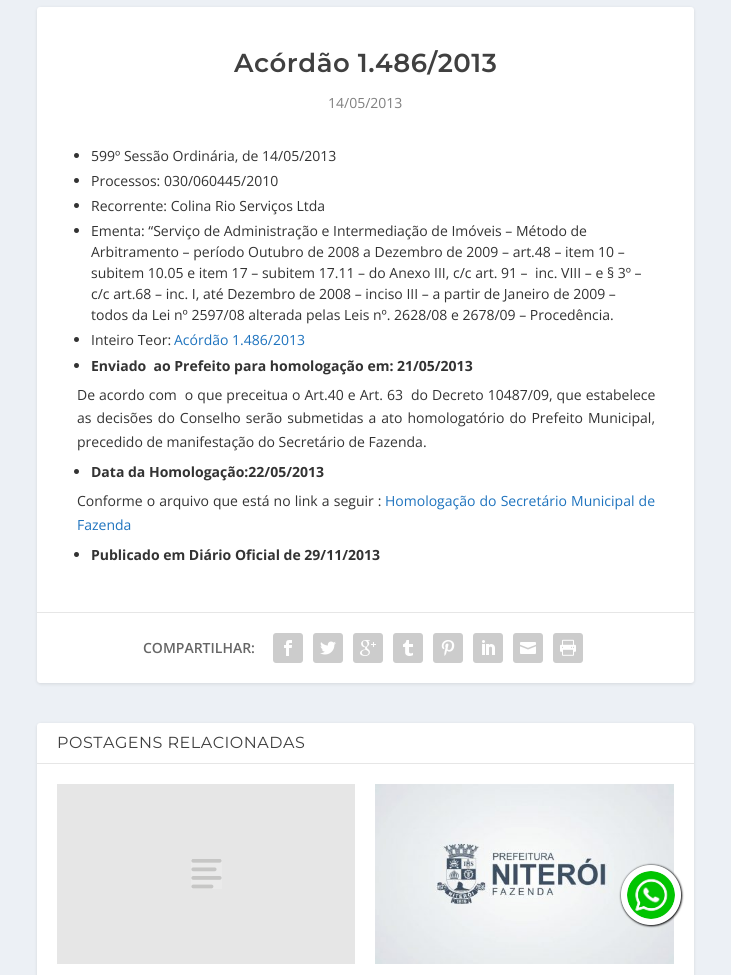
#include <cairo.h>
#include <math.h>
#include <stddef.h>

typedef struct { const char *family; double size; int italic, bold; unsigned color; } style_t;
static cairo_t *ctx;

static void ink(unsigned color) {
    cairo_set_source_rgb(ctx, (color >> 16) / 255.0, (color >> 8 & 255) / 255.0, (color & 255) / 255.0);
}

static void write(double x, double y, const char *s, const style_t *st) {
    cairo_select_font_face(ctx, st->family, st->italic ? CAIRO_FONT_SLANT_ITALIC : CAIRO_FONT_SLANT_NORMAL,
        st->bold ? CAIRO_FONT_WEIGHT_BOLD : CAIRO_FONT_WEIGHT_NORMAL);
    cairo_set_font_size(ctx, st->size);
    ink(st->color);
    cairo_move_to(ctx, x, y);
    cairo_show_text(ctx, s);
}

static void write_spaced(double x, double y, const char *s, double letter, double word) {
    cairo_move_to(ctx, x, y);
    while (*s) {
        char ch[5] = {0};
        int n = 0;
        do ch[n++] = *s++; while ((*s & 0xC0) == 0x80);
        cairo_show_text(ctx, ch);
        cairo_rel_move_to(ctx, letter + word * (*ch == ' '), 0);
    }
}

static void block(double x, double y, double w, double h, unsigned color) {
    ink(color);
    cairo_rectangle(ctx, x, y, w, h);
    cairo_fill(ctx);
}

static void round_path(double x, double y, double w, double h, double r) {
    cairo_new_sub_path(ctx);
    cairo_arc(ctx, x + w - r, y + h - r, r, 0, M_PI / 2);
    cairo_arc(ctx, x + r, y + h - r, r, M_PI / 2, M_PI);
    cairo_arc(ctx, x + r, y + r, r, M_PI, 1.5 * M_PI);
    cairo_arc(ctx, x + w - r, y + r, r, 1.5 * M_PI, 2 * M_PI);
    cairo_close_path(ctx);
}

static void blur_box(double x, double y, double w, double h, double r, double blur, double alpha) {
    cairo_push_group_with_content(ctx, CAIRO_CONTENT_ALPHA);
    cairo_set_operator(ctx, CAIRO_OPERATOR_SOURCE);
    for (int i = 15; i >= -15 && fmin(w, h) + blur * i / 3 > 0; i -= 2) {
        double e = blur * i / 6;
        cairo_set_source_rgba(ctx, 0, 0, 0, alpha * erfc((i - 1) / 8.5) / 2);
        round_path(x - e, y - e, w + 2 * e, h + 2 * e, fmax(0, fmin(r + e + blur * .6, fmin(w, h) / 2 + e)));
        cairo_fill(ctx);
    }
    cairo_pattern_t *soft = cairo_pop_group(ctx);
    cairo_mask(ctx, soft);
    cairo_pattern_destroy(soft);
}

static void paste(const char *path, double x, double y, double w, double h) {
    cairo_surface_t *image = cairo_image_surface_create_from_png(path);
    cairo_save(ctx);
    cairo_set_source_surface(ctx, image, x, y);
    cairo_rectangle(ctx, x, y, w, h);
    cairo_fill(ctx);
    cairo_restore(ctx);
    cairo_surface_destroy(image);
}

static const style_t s1 = {"Open Sans", 14, 0, 0, 0x808080};
static const style_t s2 = {"Open Sans", 14, 0, 0, 0x333333};
static const style_t s3 = {"Open Sans", 14, 0, 0, 0x1e73be};
static const style_t s4 = {"Open Sans", 14, 0, 1, 0x333333};
static const style_t s5 = {"Open Sans SemiBold", 14, 0, 0, 0x666666};

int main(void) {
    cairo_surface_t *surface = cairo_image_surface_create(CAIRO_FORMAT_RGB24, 731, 975);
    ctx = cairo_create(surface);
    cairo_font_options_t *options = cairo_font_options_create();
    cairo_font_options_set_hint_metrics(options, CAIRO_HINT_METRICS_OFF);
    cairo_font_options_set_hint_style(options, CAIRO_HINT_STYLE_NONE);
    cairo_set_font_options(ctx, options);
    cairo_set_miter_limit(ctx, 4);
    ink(0xecf0f5);
    cairo_paint(ctx);
    ink(0x000000);
    blur_box(37, 8, 657, 676, 3, 1.5, 0.1);
    ink(0xffffff);
    round_path(37, 7, 657, 676, 3);
    cairo_fill(ctx);
    cairo_select_font_face(ctx, "Montserrat SemiBold", CAIRO_FONT_SLANT_NORMAL, CAIRO_FONT_WEIGHT_NORMAL);
    cairo_set_font_size(ctx, 26);
    ink(0x404040);
    write_spaced(234, 72, "Acórdão 1.486/2013", 0.5, 0);
    write(328, 108, "14/05/2013", &s1);
    ink(0x333333);
    cairo_new_path(ctx);
    cairo_arc(ctx, 76.5, 155.5, 2.5, 0, 2 * M_PI);
    cairo_fill(ctx);
    write(91, 161, "599º Sessão Ordinária, de 14/05/2013", &s2);
    cairo_new_path(ctx);
    cairo_arc(ctx, 76.5, 180.5, 2.5, 0, 2 * M_PI);
    cairo_fill(ctx);
    write(91, 186, "Processos: 030/060445/2010", &s2);
    cairo_new_path(ctx);
    cairo_arc(ctx, 76.5, 205.5, 2.5, 0, 2 * M_PI);
    cairo_fill(ctx);
    write(91, 211, "Recorrente: Colina Rio Serviços Ltda", &s2);
    cairo_new_path(ctx);
    cairo_arc(ctx, 76.5, 230.5, 2.5, 0, 2 * M_PI);
    cairo_fill(ctx);
    write(91, 236, "Ementa: “Serviço de Administração e Intermediação de Imóveis – Método de", &s2);
    write(91, 257, "Arbitramento – período Outubro de 2008 a Dezembro de 2009 – art.48 – item 10 –", &s2);
    write(91, 278, "subitem 10.05 e item 17 – subitem 17.11 – do Anexo III, c/c art. 91 –  inc. VIII – e § 3º –", &s2);
    write(91, 299, "c/c art.68 – inc. I, até Dezembro de 2008 – inciso III – a partir de Janeiro de 2009 –", &s2);
    write(91, 320, "todos da Lei nº 2597/08 alterada pelas Leis nº. 2628/08 e 2678/09 – Procedência.", &s2);
    cairo_new_path(ctx);
    cairo_arc(ctx, 76.5, 339.5, 2.5, 0, 2 * M_PI);
    cairo_fill(ctx);
    write(91, 345, "Inteiro Teor:", &s2);
    write(174, 345, "Acórdão 1.486/2013", &s3);
    ink(0x333333);
    cairo_new_path(ctx);
    cairo_arc(ctx, 76.5, 365.5, 2.5, 0, 2 * M_PI);
    cairo_fill(ctx);
    write(91, 371, "Enviado  ao Prefeito para homologação em: 21/05/2013", &s4);
    cairo_select_font_face(ctx, "Open Sans", CAIRO_FONT_SLANT_NORMAL, CAIRO_FONT_WEIGHT_NORMAL);
    write_spaced(77, 400, "De acordo com  o que preceitua o Art.40 e Art. 63  do Decreto 10487/09, que estabelece", 0, 0.4);
    write_spaced(77, 423, "as decisões do Conselho serão submetidas a ato homologatório do Prefeito Municipal,", 0, 1.4);
    write(77, 447, "precedido de manifestação do Secretário de Fazenda.", &s2);
    cairo_new_path(ctx);
    cairo_arc(ctx, 76.5, 471.5, 2.5, 0, 2 * M_PI);
    cairo_fill(ctx);
    write(91, 477, "Data da Homologação:22/05/2013", &s4);
    cairo_select_font_face(ctx, "Open Sans", CAIRO_FONT_SLANT_NORMAL, CAIRO_FONT_WEIGHT_NORMAL);
    write_spaced(77, 506, "Conforme o arquivo que está no link a seguir :", 0, 0.5);
    ink(0x1e73be);
    write_spaced(385, 506, "Homologação do Secretário Municipal de", 0, 0.5);
    write(77, 530, "Fazenda", &s3);
    ink(0x333333);
    cairo_new_path(ctx);
    cairo_arc(ctx, 76.5, 554.5, 2.5, 0, 2 * M_PI);
    cairo_fill(ctx);
    write(91, 560, "Publicado em Diário Oficial de 29/11/2013", &s4);
    block(37, 612, 657, 1, 0xe6e6e6);
    write(143, 653, "COMPARTILHAR:", &s5);
    ink(0xcccccc);
    round_path(273, 633, 30, 30, 3);
    cairo_fill(ctx);
    paste("pic1.png", 284, 640, 8, 16);
    round_path(313, 633, 30, 30, 3);
    cairo_fill(ctx);
    paste("pic2.png", 320, 641, 16, 14);
    round_path(353, 633, 30, 30, 3);
    cairo_fill(ctx);
    paste("pic3.png", 360, 640, 16, 16);
    round_path(393, 633, 30, 30, 3);
    cairo_fill(ctx);
    paste("pic4.png", 403, 640, 10, 16);
    round_path(433, 633, 30, 30, 3);
    cairo_fill(ctx);
    paste("pic5.png", 441, 640, 14, 16);
    round_path(473, 633, 30, 30, 3);
    cairo_fill(ctx);
    paste("pic6.png", 482, 640, 13, 15);
    round_path(513, 633, 30, 30, 3);
    cairo_fill(ctx);
    paste("pic7.png", 520, 642, 16, 12);
    round_path(553, 633, 30, 30, 3);
    cairo_fill(ctx);
    paste("pic8.png", 560, 639, 16, 17);
    ink(0x000000);
    blur_box(37, 724, 657, 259, 3, 1.5, 0.1);
    ink(0xffffff);
    round_path(37, 723, 657, 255, 3);
    cairo_fill(ctx);
    block(37, 763, 657, 1, 0xe6e6e6);
    cairo_select_font_face(ctx, "Montserrat", CAIRO_FONT_SLANT_NORMAL, CAIRO_FONT_WEIGHT_NORMAL);
    cairo_set_font_size(ctx, 16);
    ink(0x404040);
    write_spaced(57, 748, "POSTAGENS RELACIONADAS", 0.5, 0);
    block(57, 784, 298, 180, 0xe6e6e6);
    paste("pic9.png", 191, 859, 31, 30);
    paste("pic10.png", 375, 784, 299, 180);
    ink(0xffffff);
    cairo_arc(ctx, 651, 895, 30, 0, 2 * M_PI);
    cairo_fill(ctx);
    cairo_save(ctx);
    cairo_set_fill_rule(ctx, CAIRO_FILL_RULE_EVEN_ODD);
    cairo_new_path(ctx);
    cairo_move_to(ctx, 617, 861);
    cairo_line_to(ctx, 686, 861);
    cairo_line_to(ctx, 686, 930);
    cairo_line_to(ctx, 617, 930);
    cairo_close_path(ctx);
    cairo_move_to(ctx, 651, 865);
    cairo_curve_to(ctx, 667.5, 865, 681, 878.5, 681, 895);
    cairo_curve_to(ctx, 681, 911.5, 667.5, 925, 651, 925);
    cairo_curve_to(ctx, 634.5, 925, 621, 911.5, 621, 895);
    cairo_curve_to(ctx, 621, 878.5, 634.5, 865, 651, 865);
    cairo_close_path(ctx);
    cairo_clip(ctx);
    ink(0x000000);
    blur_box(621, 865, 61, 61, 30.5, 1, 1);
    cairo_restore(ctx);
    paste("pic11.png", 627, 871, 48, 48);
    cairo_surface_write_to_png(surface, "screenshot.png");
    cairo_font_options_destroy(options);
    cairo_destroy(ctx);
    cairo_surface_destroy(surface);
    return 0;
}
